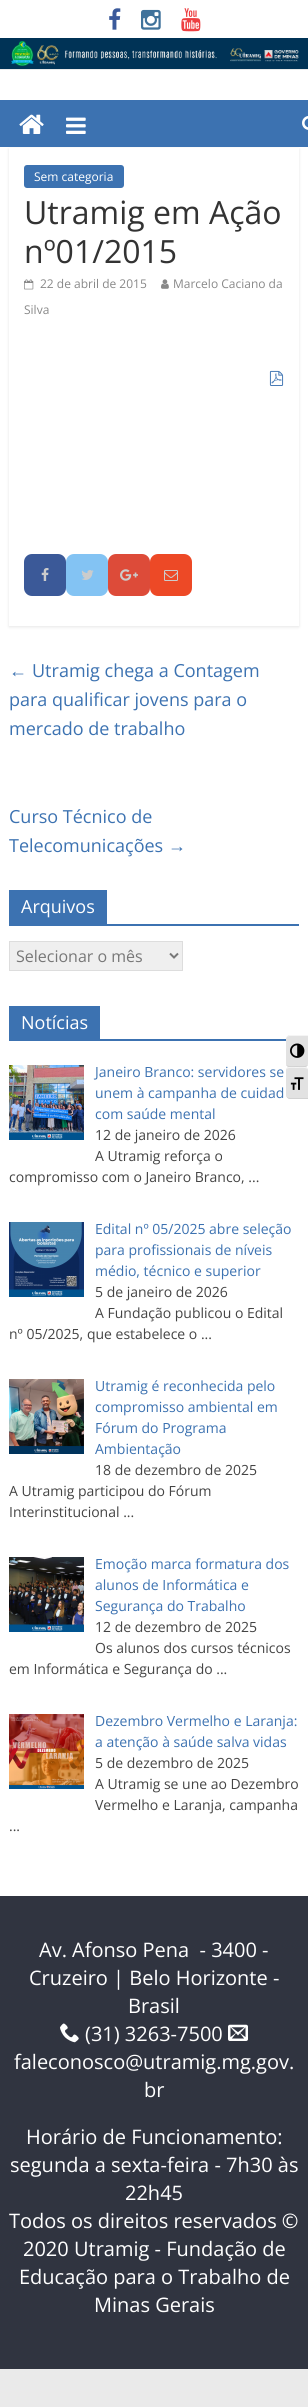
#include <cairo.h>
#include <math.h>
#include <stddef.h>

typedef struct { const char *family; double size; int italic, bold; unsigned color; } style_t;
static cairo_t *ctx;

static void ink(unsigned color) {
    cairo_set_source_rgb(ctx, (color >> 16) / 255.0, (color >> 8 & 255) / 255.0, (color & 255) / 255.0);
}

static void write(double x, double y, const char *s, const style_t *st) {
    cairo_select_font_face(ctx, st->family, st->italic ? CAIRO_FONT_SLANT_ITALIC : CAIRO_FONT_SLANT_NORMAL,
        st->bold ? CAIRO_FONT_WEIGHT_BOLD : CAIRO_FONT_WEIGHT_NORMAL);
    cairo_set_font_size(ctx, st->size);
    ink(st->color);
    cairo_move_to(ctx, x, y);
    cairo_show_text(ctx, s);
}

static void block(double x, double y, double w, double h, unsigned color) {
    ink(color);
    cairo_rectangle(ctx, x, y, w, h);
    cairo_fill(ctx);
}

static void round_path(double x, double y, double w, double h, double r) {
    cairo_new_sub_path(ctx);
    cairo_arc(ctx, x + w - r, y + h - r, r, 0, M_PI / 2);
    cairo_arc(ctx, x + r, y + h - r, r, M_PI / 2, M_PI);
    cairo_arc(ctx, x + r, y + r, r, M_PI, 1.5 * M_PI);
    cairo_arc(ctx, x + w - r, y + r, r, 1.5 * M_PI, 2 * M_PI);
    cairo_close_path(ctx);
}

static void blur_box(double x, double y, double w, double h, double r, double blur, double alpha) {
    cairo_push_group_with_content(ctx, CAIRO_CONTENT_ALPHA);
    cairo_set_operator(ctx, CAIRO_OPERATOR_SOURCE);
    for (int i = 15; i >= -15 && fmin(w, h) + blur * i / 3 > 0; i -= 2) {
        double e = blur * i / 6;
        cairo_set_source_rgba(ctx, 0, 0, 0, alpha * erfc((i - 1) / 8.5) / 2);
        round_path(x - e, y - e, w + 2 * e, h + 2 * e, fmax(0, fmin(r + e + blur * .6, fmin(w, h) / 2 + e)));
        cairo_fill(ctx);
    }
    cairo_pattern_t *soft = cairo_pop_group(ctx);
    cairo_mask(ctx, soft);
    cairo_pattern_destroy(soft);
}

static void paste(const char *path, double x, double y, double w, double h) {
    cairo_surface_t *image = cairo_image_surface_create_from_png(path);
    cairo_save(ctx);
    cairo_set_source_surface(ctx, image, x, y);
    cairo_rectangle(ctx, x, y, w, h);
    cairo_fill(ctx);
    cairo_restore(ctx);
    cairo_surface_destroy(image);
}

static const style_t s1 = {"Open Sans", 12, 0, 0, 0xffffff};
static const style_t s2 = {"Open Sans", 32, 0, 0, 0x333333};
static const style_t s3 = {"Open Sans", 12, 0, 0, 0x888888};
static const style_t s4 = {"Liberation Serif", 18, 0, 0, 0x3c72b1};
static const style_t s5 = {"Open Sans", 18, 0, 0, 0x3c72b1};
static const style_t s6 = {"Open Sans", 18, 0, 0, 0xffffff};
static const style_t s7 = {"Open Sans", 16, 0, 0, 0x777777};
static const style_t s8 = {"Open Sans", 14, 0, 0, 0x3c72b1};
static const style_t s9 = {"Open Sans", 14, 0, 0, 0x444444};
static const style_t s10 = {"Open Sans", 20, 0, 0, 0xffffff};

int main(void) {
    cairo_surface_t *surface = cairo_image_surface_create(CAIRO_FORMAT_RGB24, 308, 2407);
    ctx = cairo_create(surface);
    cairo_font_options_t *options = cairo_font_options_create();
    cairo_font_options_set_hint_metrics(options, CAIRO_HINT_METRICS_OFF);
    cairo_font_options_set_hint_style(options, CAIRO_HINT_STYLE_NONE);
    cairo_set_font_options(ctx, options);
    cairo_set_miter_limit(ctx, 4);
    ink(0xeaeaea);
    cairo_paint(ctx);
    block(0, 0, 308, 1896, 0xffffff);
    paste("pic1.png", 109, 8, 12, 22);
    paste("pic2.png", 141, 9, 20, 21);
    paste("pic3.png", 181, 8, 20, 24);
    paste("pic4.png", 0, 38, 308, 31);
    block(0, 69, 308, 1, 0xeaeaea);
    cairo_save(ctx);
    cairo_set_fill_rule(ctx, CAIRO_FILL_RULE_EVEN_ODD);
    cairo_new_path(ctx);
    cairo_move_to(ctx, 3, 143);
    cairo_line_to(ctx, 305, 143);
    cairo_line_to(ctx, 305, 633);
    cairo_line_to(ctx, 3, 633);
    cairo_close_path(ctx);
    cairo_move_to(ctx, 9, 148);
    cairo_line_to(ctx, 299, 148);
    cairo_line_to(ctx, 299, 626);
    cairo_line_to(ctx, 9, 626);
    cairo_close_path(ctx);
    cairo_clip(ctx);
    ink(0x000000);
    blur_box(9, 149, 290, 478, 0, 1.5, 0.1);
    cairo_restore(ctx);
    block(0, 100, 308, 47, 0x3c72b1);
    paste("pic5.png", 19, 114, 25, 20);
    paste("pic6.png", 66, 117, 20, 17);
    paste("pic7.png", 302, 116, 6, 14);
    round_path(24, 165, 100, 23, 3);
    cairo_fill(ctx);
    write(34, 181, "Sem categoria", &s1);
    write(24, 224, "Utramig em Ação", &s2);
    write(24, 263, "nº01/2015", &s2);
    paste("pic8.png", 161, 279, 8, 10);
    write(173, 288, "Marcelo Caciano da", &s3);
    write(24, 314, "Silva", &s3);
    paste("pic9.png", 24, 279, 10, 11);
    write(40, 288, "22 de abril de 2015", &s3);
    paste("pic10.png", 269, 370, 15, 16);
    ink(0x3b5998);
    round_path(24, 554, 42, 42, 8);
    cairo_fill(ctx);
    paste("pic11.png", 41, 568, 8, 13);
    ink(0x83c3f3);
    round_path(66, 554, 42, 42, 8);
    cairo_fill(ctx);
    paste("pic12.png", 81, 570, 13, 10);
    ink(0xdd4b39);
    round_path(108, 554, 42, 42, 8);
    cairo_fill(ctx);
    paste("pic13.png", 120, 569, 18, 12);
    ink(0xed4926);
    round_path(150, 554, 42, 42, 8);
    cairo_fill(ctx);
    paste("pic14.png", 164, 570, 14, 11);
    write(9, 677, "←", &s4);
    write(32, 677, "Utramig chega a Contagem", &s5);
    write(9, 706, "para qualificar jovens para o", &s5);
    write(9, 735, "mercado de trabalho", &s5);
    write(9, 823, "Curso Técnico de", &s5);
    write(9, 852, "Telecomunicações", &s5);
    write(168, 852, "→", &s4);
    block(9, 924, 290, 2, 0x3c72b1);
    block(9, 890, 98, 34, 0x3c72b1);
    write(21, 913, "Arquivos", &s6);
    ink(0xefefef);
    cairo_rectangle(ctx, 9.5, 941.5, 173, 29);
    cairo_fill_preserve(ctx);
    ink(0xdddddd);
    cairo_set_line_width(ctx, 1);
    cairo_stroke(ctx);
    cairo_new_path(ctx);
    cairo_move_to(ctx, 170, 953.5);
    cairo_line_to(ctx, 174, 957.5);
    cairo_line_to(ctx, 178, 953.5);
    ink(0x777777);
    cairo_set_line_width(ctx, 2);
    cairo_stroke(ctx);
    write(16, 962, "Selecionar o mês", &s7);
    block(9, 1039, 277, 2, 0x3c72b1);
    block(9, 1006, 91, 33, 0x3c72b1);
    write(21, 1029, "Notícias", &s6);
    paste("pic15.png", 9, 1065, 75, 75);
    write(95, 1077, "Janeiro Branco: servidores se", &s8);
    write(95, 1098, "unem à campanha de cuidad", &s8);
    write(95, 1119, "com saúde mental", &s8);
    write(95, 1140, "12 de janeiro de 2026", &s9);
    write(95, 1161, "A Utramig reforça o", &s9);
    write(9, 1182, "compromisso com o Janeiro Branco, ...", &s9);
    paste("pic16.png", 9, 1222, 75, 75);
    write(95, 1234, "Edital nº 05/2025 abre seleção", &s8);
    write(95, 1255, "para profissionais de níveis", &s8);
    write(95, 1276, "médio, técnico e superior", &s8);
    write(95, 1297, "5 de janeiro de 2026", &s9);
    write(95, 1318, "A Fundação publicou o Edital", &s9);
    write(9, 1339, "nº 05/2025, que estabelece o ...", &s9);
    paste("pic17.png", 9, 1379, 75, 75);
    write(95, 1391, "Utramig é reconhecida pelo", &s8);
    write(95, 1412, "compromisso ambiental em", &s8);
    write(95, 1433, "Fórum do Programa", &s8);
    write(95, 1454, "Ambientação", &s8);
    write(95, 1475, "18 de dezembro de 2025", &s9);
    write(9, 1496, "A Utramig participou do Fórum", &s9);
    write(9, 1517, "Interinstitucional ...", &s9);
    paste("pic18.png", 9, 1557, 75, 75);
    write(95, 1569, "Emoção marca formatura dos", &s8);
    write(95, 1590, "alunos de Informática e", &s8);
    write(95, 1611, "Segurança do Trabalho", &s8);
    write(95, 1632, "12 de dezembro de 2025", &s9);
    write(95, 1653, "Os alunos dos cursos técnicos", &s9);
    write(9, 1674, "em Informática e Segurança do ...", &s9);
    paste("pic19.png", 9, 1714, 75, 75);
    write(95, 1726, "Dezembro Vermelho e Laranja:", &s8);
    write(95, 1747, "a atenção à saúde salva vidas", &s8);
    write(95, 1768, "5 de dezembro de 2025", &s9);
    write(95, 1789, "A Utramig se une ao Dezembro", &s9);
    write(95, 1810, "Vermelho e Laranja, campanha", &s9);
    write(9, 1831, "...", &s9);
    block(0, 1896, 308, 473, 0x303440);
    write(39, 1957, "Av. Afonso Pena  - 3400 -", &s10);
    write(29, 1985, "Cruzeiro | Belo Horizonte -", &s10);
    write(128, 2013, "Brasil", &s10);
    paste("pic20.png", 60, 2023, 19, 20);
    write(85, 2041, "(31) 3263-7500", &s10);
    paste("pic21.png", 228, 2024, 20, 17);
    write(14, 2069, "faleconosco@utramig.mg.gov.", &s10);
    write(144, 2097, "br", &s10);
    write(26, 2144, "Horário de Funcionamento:", &s10);
    write(10, 2172, "segunda a sexta-feira - 7h30 às", &s10);
    write(125, 2200, "22h45", &s10);
    write(9, 2228, "Todos os direitos reservados ©", &s10);
    write(23, 2256, "2020 Utramig - Fundação de", &s10);
    write(19, 2284, "Educação para o Trabalho de", &s10);
    write(94, 2312, "Minas Gerais", &s10);
    ink(0xe2e2e2);
    cairo_new_path(ctx);
    cairo_move_to(ctx, 290, 1035);
    cairo_line_to(ctx, 308, 1035);
    cairo_line_to(ctx, 308, 1064);
    cairo_curve_to(ctx, 308, 1065.5, 306.5, 1067, 305, 1067);
    cairo_line_to(ctx, 289, 1067);
    cairo_curve_to(ctx, 287.5, 1067, 286, 1065.5, 286, 1064);
    cairo_line_to(ctx, 286, 1039);
    cairo_curve_to(ctx, 286, 1037, 288, 1035, 290, 1035);
    cairo_close_path(ctx);
    cairo_fill(ctx);
    ink(0xf5f5f5);
    cairo_new_path(ctx);
    cairo_move_to(ctx, 290, 1036);
    cairo_line_to(ctx, 308, 1036);
    cairo_line_to(ctx, 308, 1035);
    cairo_line_to(ctx, 290, 1035);
    cairo_curve_to(ctx, 288, 1035, 286, 1037, 286, 1039);
    cairo_curve_to(ctx, 286, 1037.5, 288, 1036, 290, 1036);
    cairo_close_path(ctx);
    cairo_fill(ctx);
    ink(0xd2d2d2);
    cairo_new_path(ctx);
    cairo_move_to(ctx, 289, 1067);
    cairo_line_to(ctx, 305, 1067);
    cairo_curve_to(ctx, 306.5, 1067, 308, 1065.5, 308, 1064);
    cairo_curve_to(ctx, 308, 1067, 298.5, 1066, 297, 1066);
    cairo_curve_to(ctx, 295.5, 1066, 286, 1067, 286, 1064);
    cairo_curve_to(ctx, 286, 1065.5, 287.5, 1067, 289, 1067);
    cairo_close_path(ctx);
    cairo_fill(ctx);
    paste("pic22.png", 290, 1043, 15, 15);
    ink(0xe2e2e2);
    cairo_new_path(ctx);
    cairo_move_to(ctx, 289, 1067);
    cairo_line_to(ctx, 305, 1067);
    cairo_curve_to(ctx, 306.5, 1067, 308, 1068.5, 308, 1070);
    cairo_line_to(ctx, 308, 1099);
    cairo_line_to(ctx, 290, 1099);
    cairo_curve_to(ctx, 288, 1099, 286, 1097, 286, 1095);
    cairo_line_to(ctx, 286, 1070);
    cairo_curve_to(ctx, 286, 1068.5, 287.5, 1067, 289, 1067);
    cairo_close_path(ctx);
    cairo_fill(ctx);
    ink(0xf5f5f5);
    cairo_new_path(ctx);
    cairo_move_to(ctx, 289, 1067);
    cairo_curve_to(ctx, 287.5, 1067, 286, 1068.5, 286, 1070);
    cairo_curve_to(ctx, 286, 1067, 295.5, 1068, 297, 1068);
    cairo_curve_to(ctx, 298.5, 1068, 308, 1067, 308, 1070);
    cairo_curve_to(ctx, 308, 1068.5, 306.5, 1067, 305, 1067);
    cairo_close_path(ctx);
    cairo_fill(ctx);
    ink(0xd2d2d2);
    cairo_new_path(ctx);
    cairo_move_to(ctx, 308, 1099);
    cairo_line_to(ctx, 308, 1098);
    cairo_line_to(ctx, 290, 1098);
    cairo_curve_to(ctx, 288, 1098, 286, 1096.5, 286, 1095);
    cairo_curve_to(ctx, 286, 1097, 288, 1099, 290, 1099);
    cairo_close_path(ctx);
    cairo_fill(ctx);
    paste("pic23.png", 290, 1077, 14, 13);
    cairo_surface_write_to_png(surface, "screenshot.png");
    cairo_font_options_destroy(options);
    cairo_destroy(ctx);
    cairo_surface_destroy(surface);
    return 0;
}
